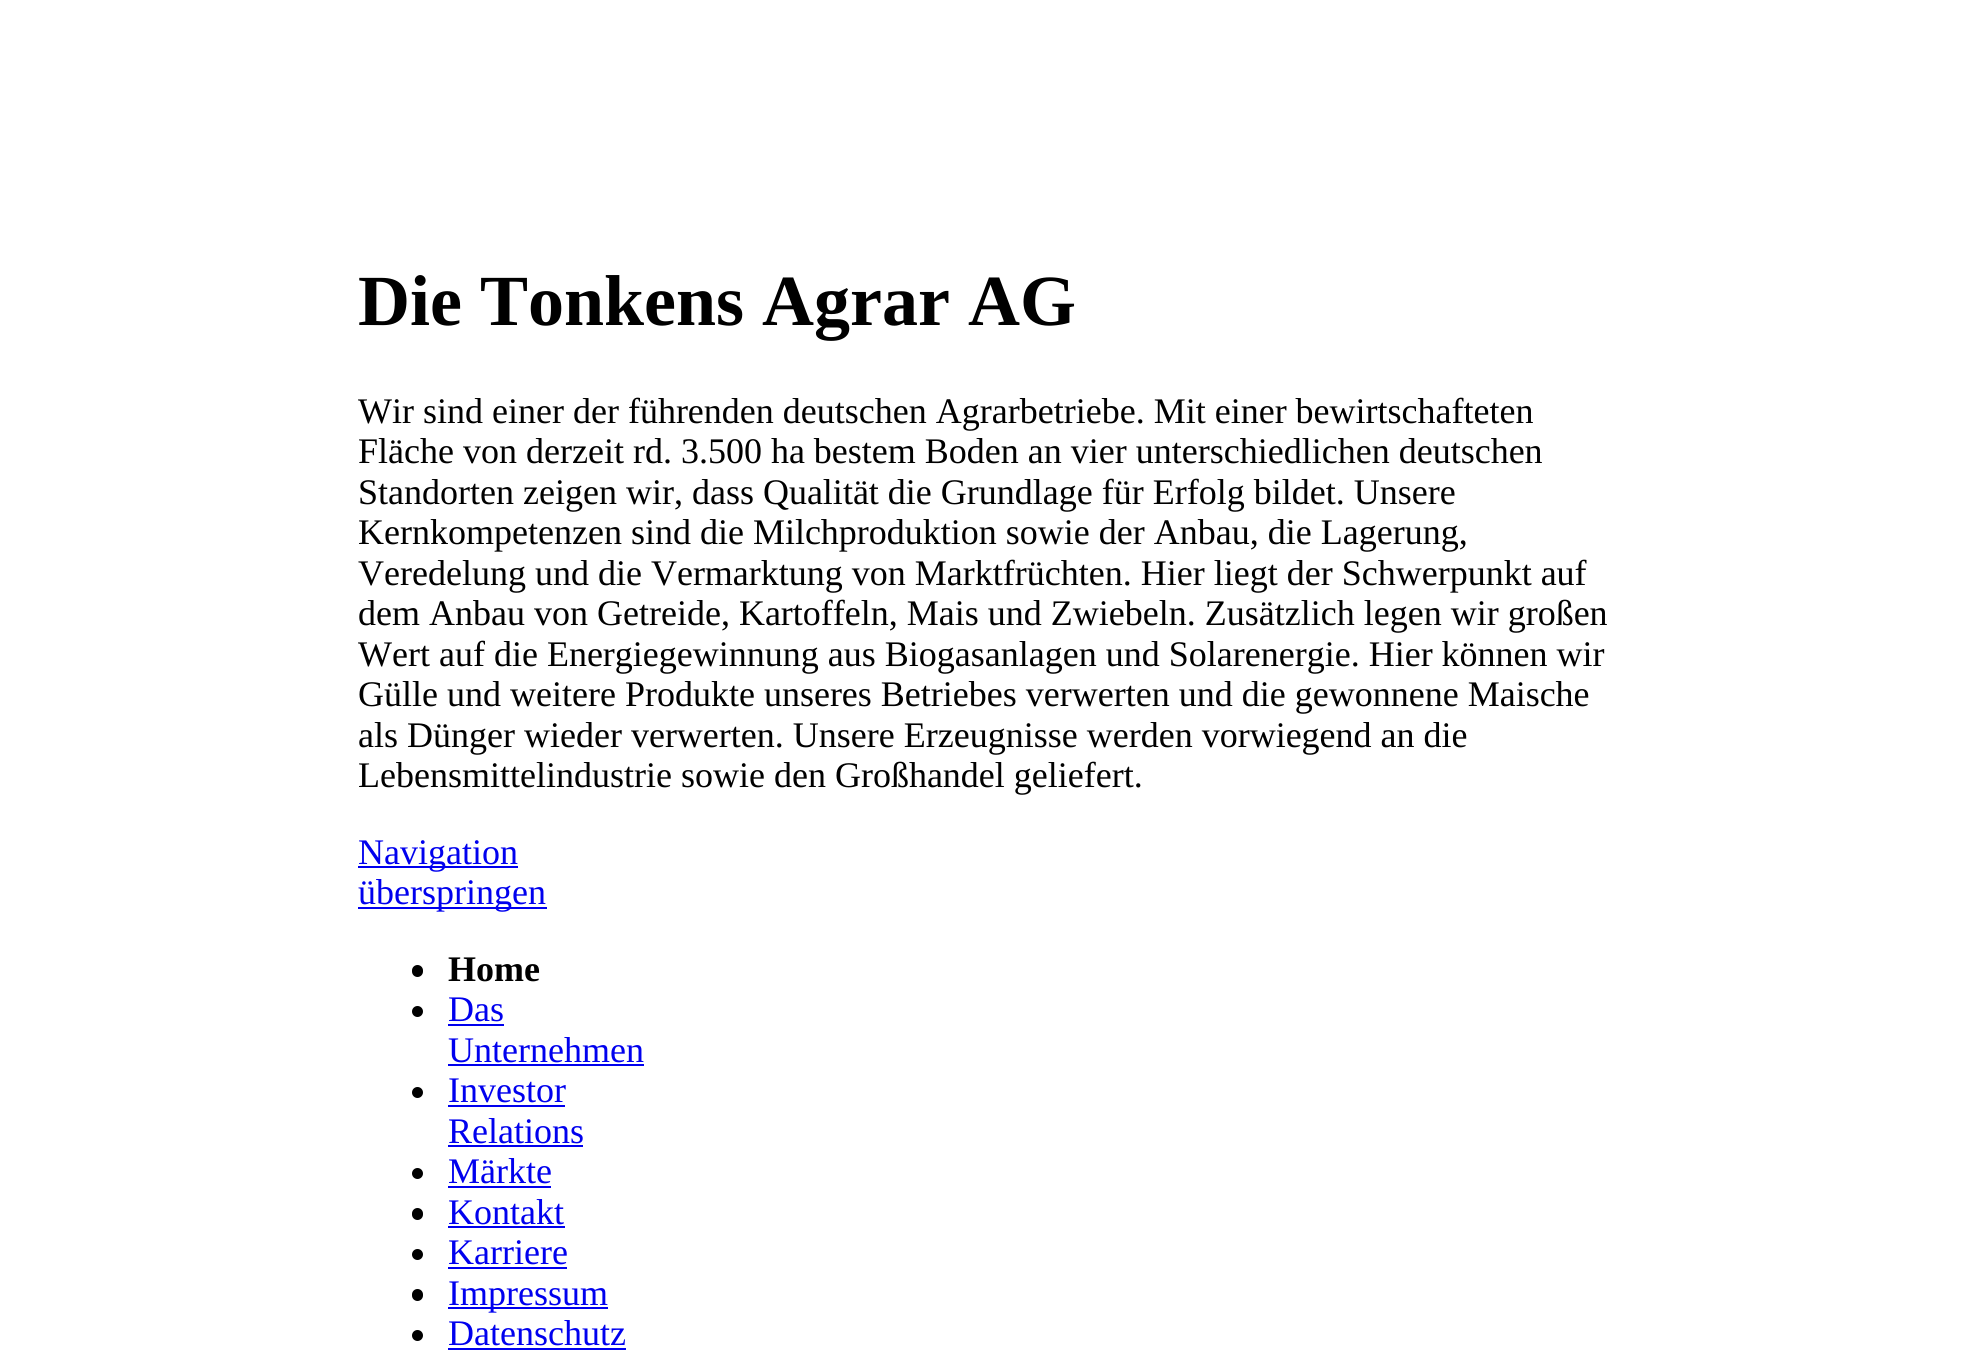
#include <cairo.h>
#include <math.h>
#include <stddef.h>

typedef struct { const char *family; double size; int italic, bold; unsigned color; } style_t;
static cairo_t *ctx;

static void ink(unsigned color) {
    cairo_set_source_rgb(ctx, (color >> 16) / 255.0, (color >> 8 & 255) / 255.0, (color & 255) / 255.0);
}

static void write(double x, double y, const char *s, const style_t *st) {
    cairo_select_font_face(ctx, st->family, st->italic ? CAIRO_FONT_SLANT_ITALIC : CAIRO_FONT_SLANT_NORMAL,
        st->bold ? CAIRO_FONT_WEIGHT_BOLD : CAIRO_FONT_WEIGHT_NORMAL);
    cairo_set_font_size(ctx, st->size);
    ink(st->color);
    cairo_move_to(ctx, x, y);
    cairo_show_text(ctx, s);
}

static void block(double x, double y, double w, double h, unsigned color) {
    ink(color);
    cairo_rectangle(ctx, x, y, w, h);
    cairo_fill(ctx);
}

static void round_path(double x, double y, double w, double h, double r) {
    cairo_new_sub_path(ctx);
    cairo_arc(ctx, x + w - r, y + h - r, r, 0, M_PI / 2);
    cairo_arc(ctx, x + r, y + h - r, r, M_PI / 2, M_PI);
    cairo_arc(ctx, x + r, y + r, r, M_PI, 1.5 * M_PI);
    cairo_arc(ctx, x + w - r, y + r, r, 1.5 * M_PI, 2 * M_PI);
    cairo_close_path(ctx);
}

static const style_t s1 = {"Liberation Serif", 72, 0, 1, 0x000000};
static const style_t s2 = {"Liberation Serif", 36, 0, 0, 0x000000};
static const style_t s3 = {"Liberation Serif", 36, 0, 0, 0x0000ee};
static const style_t s4 = {"Liberation Serif", 36, 0, 1, 0x000000};

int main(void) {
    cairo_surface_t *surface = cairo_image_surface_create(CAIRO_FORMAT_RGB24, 1979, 1369);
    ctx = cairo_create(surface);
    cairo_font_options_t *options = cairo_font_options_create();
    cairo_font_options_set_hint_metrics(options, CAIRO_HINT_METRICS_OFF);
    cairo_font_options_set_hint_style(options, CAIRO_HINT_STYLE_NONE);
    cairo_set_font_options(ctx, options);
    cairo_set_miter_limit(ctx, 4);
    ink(0xffffff);
    cairo_paint(ctx);
    write(358, 325, "Die Tonkens Agrar AG", &s1);
    write(358, 423, "Wir sind einer der führenden deutschen Agrarbetriebe. Mit einer bewirtschafteten", &s2);
    write(358, 463, "Fläche von derzeit rd. 3.500 ha bestem Boden an vier unterschiedlichen deutschen", &s2);
    write(358, 504, "Standorten zeigen wir, dass Qualität die Grundlage für Erfolg bildet. Unsere", &s2);
    write(358, 544, "Kernkompetenzen sind die Milchproduktion sowie der Anbau, die Lagerung,", &s2);
    write(358, 585, "Veredelung und die Vermarktung von Marktfrüchten. Hier liegt der Schwerpunkt auf", &s2);
    write(358, 625, "dem Anbau von Getreide, Kartoffeln, Mais und Zwiebeln. Zusätzlich legen wir großen", &s2);
    write(358, 666, "Wert auf die Energiegewinnung aus Biogasanlagen und Solarenergie. Hier können wir", &s2);
    write(358, 706, "Gülle und weitere Produkte unseres Betriebes verwerten und die gewonnene Maische", &s2);
    write(358, 747, "als Dünger wieder verwerten. Unsere Erzeugnisse werden vorwiegend an die", &s2);
    write(358, 787, "Lebensmittelindustrie sowie den Großhandel geliefert.", &s2);
    block(358, 866, 160, 2, 0x0000ee);
    write(358, 864, "Navigation", &s3);
    block(358, 907, 189, 2, 0x0000ee);
    write(358, 904, "überspringen", &s3);
    ink(0x000000);
    round_path(412, 965, 11, 12, 5.5);
    cairo_fill(ctx);
    write(448, 981, "Home", &s4);
    cairo_new_path(ctx);
    cairo_arc(ctx, 417.5, 1011.5, 5.5, 0, 2 * M_PI);
    cairo_fill(ctx);
    write(448, 1021, "Das", &s3);
    block(448, 1024, 56, 2, 0x0000ee);
    write(448, 1062, "Unternehmen", &s3);
    block(448, 1064, 196, 2, 0x0000ee);
    ink(0x000000);
    cairo_new_path(ctx);
    cairo_arc(ctx, 417.5, 1092.5, 5.5, 0, 2 * M_PI);
    cairo_fill(ctx);
    write(448, 1102, "Investor", &s3);
    block(448, 1105, 117, 2, 0x0000ee);
    write(448, 1143, "Relations", &s3);
    block(448, 1145, 135, 2, 0x0000ee);
    ink(0x000000);
    cairo_new_path(ctx);
    cairo_arc(ctx, 417.5, 1173.5, 5.5, 0, 2 * M_PI);
    cairo_fill(ctx);
    write(448, 1183, "Märkte", &s3);
    block(448, 1186, 103, 2, 0x0000ee);
    ink(0x000000);
    round_path(412, 1208, 11, 12, 5.5);
    cairo_fill(ctx);
    write(448, 1224, "Kontakt", &s3);
    block(448, 1226, 117, 2, 0x0000ee);
    ink(0x000000);
    cairo_new_path(ctx);
    cairo_arc(ctx, 417.5, 1254.5, 5.5, 0, 2 * M_PI);
    cairo_fill(ctx);
    write(448, 1264, "Karriere", &s3);
    block(448, 1267, 119, 2, 0x0000ee);
    ink(0x000000);
    round_path(412, 1289, 11, 12, 5.5);
    cairo_fill(ctx);
    block(448, 1307, 160, 2, 0x0000ee);
    write(448, 1305, "Impressum", &s3);
    ink(0x000000);
    cairo_new_path(ctx);
    cairo_arc(ctx, 417.5, 1335.5, 5.5, 0, 2 * M_PI);
    cairo_fill(ctx);
    write(448, 1345, "Datenschutz", &s3);
    block(448, 1348, 178, 2, 0x0000ee);
    cairo_surface_write_to_png(surface, "screenshot.png");
    cairo_font_options_destroy(options);
    cairo_destroy(ctx);
    cairo_surface_destroy(surface);
    return 0;
}
